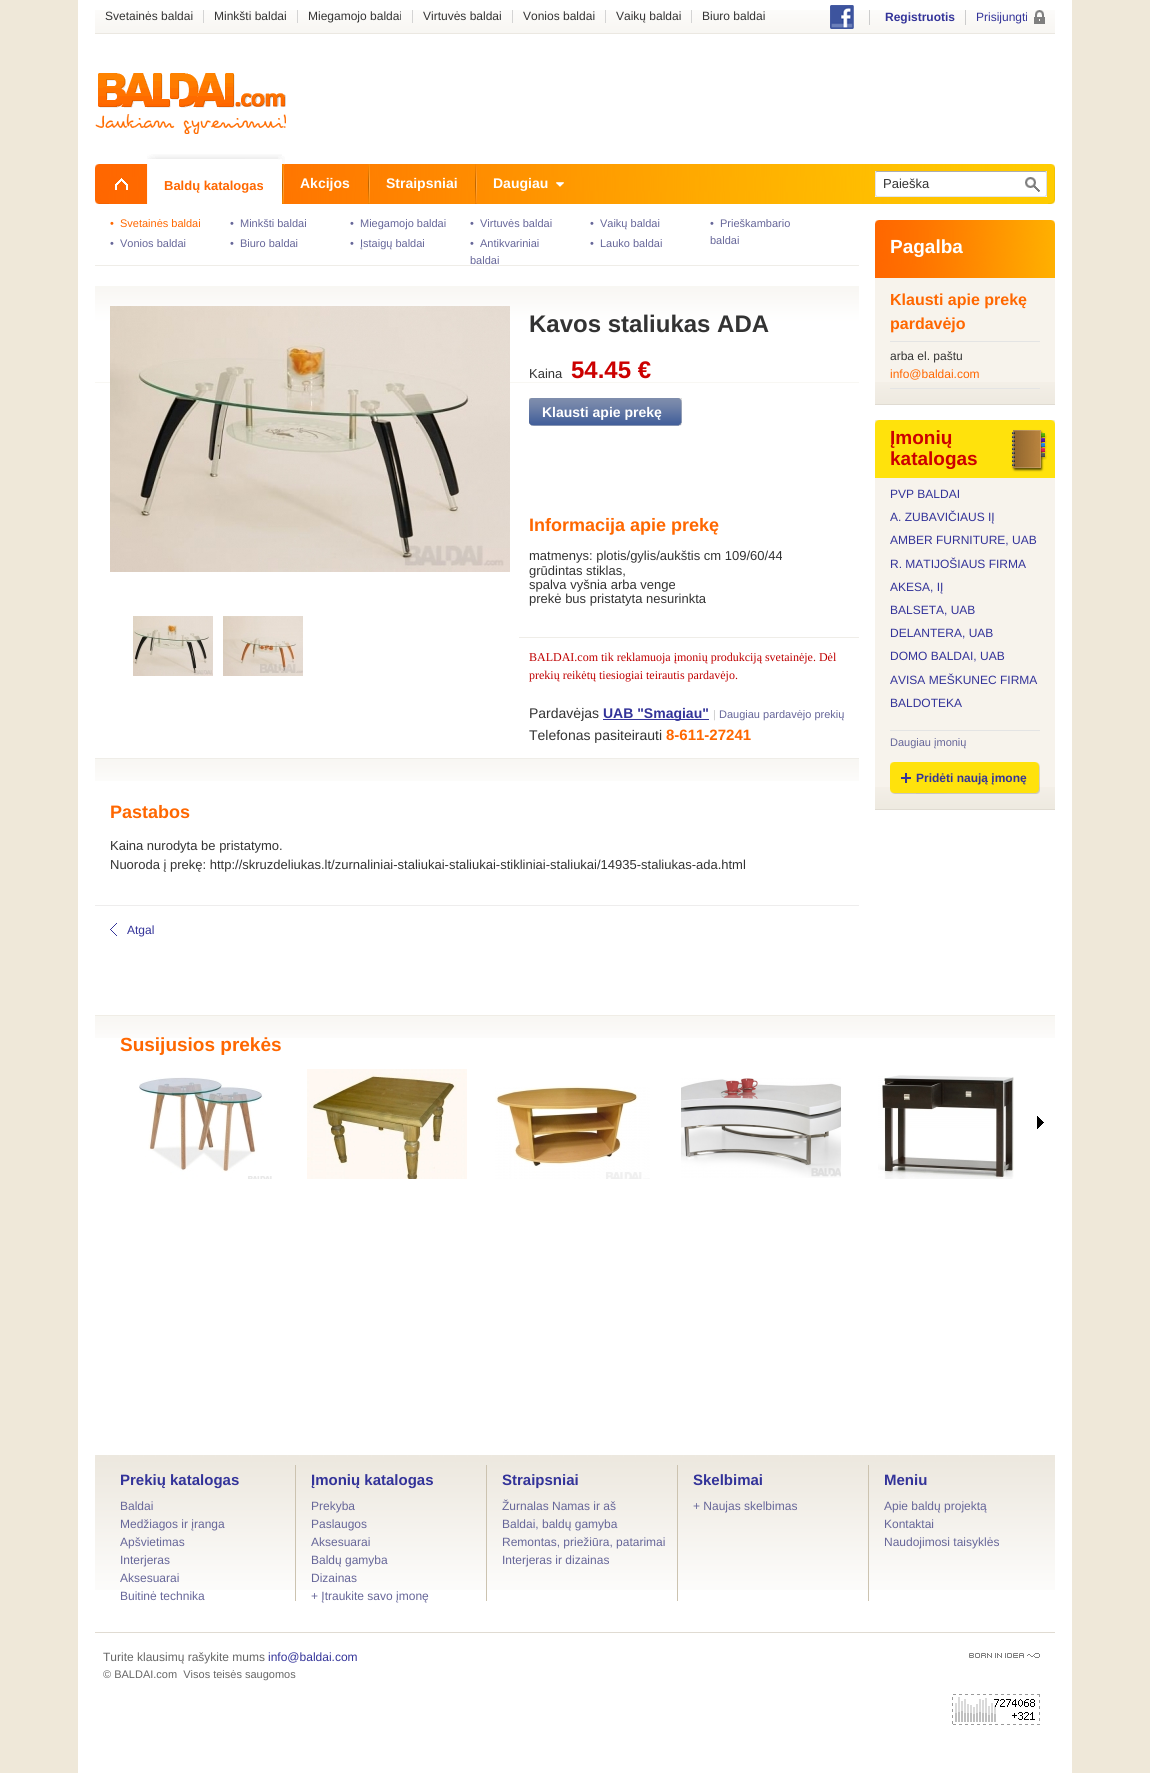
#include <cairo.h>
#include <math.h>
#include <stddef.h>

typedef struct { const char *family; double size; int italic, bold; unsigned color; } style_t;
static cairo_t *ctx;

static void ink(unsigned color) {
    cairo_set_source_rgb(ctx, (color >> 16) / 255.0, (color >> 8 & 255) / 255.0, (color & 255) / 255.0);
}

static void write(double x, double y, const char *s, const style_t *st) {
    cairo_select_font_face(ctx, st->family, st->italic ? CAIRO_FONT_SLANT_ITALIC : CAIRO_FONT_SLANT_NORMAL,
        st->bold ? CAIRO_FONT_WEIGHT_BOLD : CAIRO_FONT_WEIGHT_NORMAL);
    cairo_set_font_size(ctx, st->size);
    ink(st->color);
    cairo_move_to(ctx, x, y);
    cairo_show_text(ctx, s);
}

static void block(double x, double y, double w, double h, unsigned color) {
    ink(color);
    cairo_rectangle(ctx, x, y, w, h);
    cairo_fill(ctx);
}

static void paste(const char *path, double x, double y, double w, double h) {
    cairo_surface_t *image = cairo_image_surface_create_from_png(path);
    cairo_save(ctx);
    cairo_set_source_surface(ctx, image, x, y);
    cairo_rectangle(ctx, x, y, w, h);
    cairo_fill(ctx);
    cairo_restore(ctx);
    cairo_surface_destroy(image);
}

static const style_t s1 = {"Liberation Sans", 12, 0, 0, 0x333333};
static const style_t s2 = {"Liberation Sans", 12, 0, 1, 0x333399};
static const style_t s3 = {"Liberation Sans", 12, 0, 0, 0x333399};
static const style_t s4 = {"Liberation Sans", 13, 0, 1, 0xff6700};
static const style_t s5 = {"Liberation Sans", 14, 0, 1, 0xffffff};
static const style_t s6 = {"Liberation Sans", 13, 0, 0, 0x333333};
static const style_t s7 = {"Liberation Sans", 11, 0, 0, 0xff6700};
static const style_t s8 = {"Liberation Sans", 11, 0, 0, 0x666699};
static const style_t s9 = {"Liberation Sans", 24, 0, 1, 0x333333};
static const style_t s10 = {"Liberation Sans", 24, 0, 1, 0xcc0000};
static const style_t s11 = {"Liberation Sans", 18, 0, 1, 0xff6700};
static const style_t s12 = {"Liberation Serif", 12, 0, 0, 0xbf0000};
static const style_t s13 = {"Liberation Sans", 14, 0, 0, 0x333333};
static const style_t s14 = {"Liberation Sans", 14, 0, 1, 0x333399};
static const style_t s15 = {"Liberation Sans", 11, 0, 0, 0xcccccc};
static const style_t s16 = {"Liberation Sans", 15, 0, 1, 0xff6700};
static const style_t s17 = {"Liberation Sans", 19, 0, 1, 0xffffff};
static const style_t s18 = {"Liberation Sans", 16, 0, 1, 0xff6700};
static const style_t s19 = {"Liberation Sans", 12, 0, 0, 0xff6700};
static const style_t s20 = {"Liberation Sans", 19, 0, 1, 0xcc0000};
static const style_t s21 = {"Liberation Sans", 19, 0, 1, 0xff6700};
static const style_t s22 = {"Liberation Sans", 15, 0, 1, 0x333399};
static const style_t s23 = {"Liberation Sans", 12, 0, 0, 0x666699};
static const style_t s24 = {"Liberation Sans", 12, 0, 0, 0x666666};
static const style_t s25 = {"Liberation Sans", 11, 0, 0, 0x666666};

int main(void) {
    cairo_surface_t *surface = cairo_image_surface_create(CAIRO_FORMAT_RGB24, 1150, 1773);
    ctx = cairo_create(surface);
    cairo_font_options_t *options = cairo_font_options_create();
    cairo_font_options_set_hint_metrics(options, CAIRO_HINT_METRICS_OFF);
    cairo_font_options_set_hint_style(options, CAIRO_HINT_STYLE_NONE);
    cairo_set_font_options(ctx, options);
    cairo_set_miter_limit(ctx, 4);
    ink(0xefe8d9);
    cairo_paint(ctx);
    block(78, 0, 994, 1773, 0xffffff);
    paste("pic1.png", 95, 10, 960, 23);
    block(95, 33, 960, 1, 0xebe8e1);
    write(105, 20, "Svetainės baldai", &s1);
    block(203, 10, 1, 13, 0xd4d4d4);
    write(214, 20, "Minkšti baldai", &s1);
    block(297, 10, 1, 13, 0xd4d4d4);
    write(308, 20, "Miegamojo baldai", &s1);
    block(412, 10, 1, 13, 0xd4d4d4);
    write(423, 20, "Virtuvės baldai", &s1);
    block(512, 10, 1, 13, 0xd4d4d4);
    write(523, 20, "Vonios baldai", &s1);
    block(605, 10, 1, 13, 0xd4d4d4);
    write(616, 20, "Vaikų baldai", &s1);
    block(691, 10, 1, 13, 0xd4d4d4);
    write(702, 20, "Biuro baldai", &s1);
    paste("pic2.png", 830, 5, 24, 24);
    block(869, 10, 1, 15, 0xcccccc);
    block(965, 10, 1, 15, 0xcccccc);
    write(885, 21, "Registruotis", &s2);
    paste("pic3.png", 1034, 10, 11, 14);
    write(976, 21, "Prisijungti", &s3);
    paste("pic4.png", 95, 73, 191, 61);
    paste("pic5.png", 95, 164, 960, 40);
    paste("pic6.png", 115, 178, 13, 12);
    paste("pic7.png", 147, 154, 135, 50);
    paste("pic8.png", 278, 156, 7, 9);
    write(164, 190, "Baldų katalogas", &s4);
    paste("pic9.png", 282, 164, 2, 40);
    write(300, 188, "Akcijos", &s5);
    paste("pic9.png", 368, 164, 2, 40);
    write(386, 188, "Straipsniai", &s5);
    paste("pic9.png", 475, 164, 2, 40);
    write(493, 188, "Daugiau", &s5);
    paste("pic10.png", 556, 182, 8, 5);
    paste("pic11.png", 875, 171, 172, 26);
    write(883, 188, "Paieška", &s6);
    block(95, 265, 764, 1, 0xefede8);
    write(110, 227, "•  Svetainės baldai", &s7);
    write(230, 227, "•  Minkšti baldai", &s8);
    write(350, 227, "•  Miegamojo baldai", &s8);
    write(470, 227, "•  Virtuvės baldai", &s8);
    write(590, 227, "•  Vaikų baldai", &s8);
    write(710, 227, "•  Prieškambario", &s8);
    write(710, 244, "baldai", &s8);
    write(110, 247, "•  Vonios baldai", &s8);
    write(230, 247, "•  Biuro baldai", &s8);
    write(350, 247, "•  Įstaigų baldai", &s8);
    write(470, 247, "•  Antikvariniai", &s8);
    write(470, 264, "baldai", &s8);
    write(590, 247, "•  Lauko baldai", &s8);
    paste("pic12.png", 95, 286, 764, 97);
    paste("pic13.png", 110, 306, 400, 266);
    paste("pic14.png", 133, 616, 80, 60);
    paste("pic15.png", 223, 616, 80, 60);
    write(529, 332, "Kavos staliukas ADA", &s9);
    write(529, 378, "Kaina", &s6);
    write(571, 378, "54.45 €", &s10);
    paste("pic16.png", 555, 398, 127, 28);
    paste("pic17.png", 529, 398, 26, 28);
    write(542, 417, "Klausti apie prekę", &s5);
    write(529, 531, "Informacija apie prekę", &s11);
    write(529, 560, "matmenys: plotis/gylis/aukštis cm 109/60/44", &s6);
    write(529, 575, "grūdintas stiklas,", &s6);
    write(529, 589, "spalva vyšnia arba venge", &s6);
    write(529, 603, "prekė bus pristatyta nesurinkta", &s6);
    block(519, 637, 340, 1, 0xefede8);
    write(529, 661, "BALDAI.com tik reklamuoja įmonių produkciją svetainėje. Dėl", &s12);
    write(529, 679, "prekių reikėtų tiesiogiai teirautis pardavėjo.", &s12);
    write(529, 718, "Pardavėjas", &s13);
    block(603, 719, 106, 1, 0x333399);
    write(603, 718, "UAB \"Smagiau\"", &s14);
    write(713, 718, "|", &s15);
    write(719, 718, "Daugiau pardavėjo prekių", &s8);
    write(529, 740, "Telefonas pasiteirauti", &s13);
    write(666, 740, "8-611-27241", &s16);
    paste("pic18.png", 95, 759, 764, 22);
    block(95, 758, 764, 1, 0xefede8);
    write(110, 818, "Pastabos", &s11);
    write(110, 850, "Kaina nurodyta be pristatymo.", &s6);
    write(110, 869, "Nuoroda į prekę: http://skruzdeliukas.lt/zurnaliniai-staliukai-staliukai-stikliniai-staliukai/14935-staliukas-ada.html", &s6);
    block(95, 905, 764, 1, 0xeeeded);
    paste("pic19.png", 110, 923, 7, 13);
    write(127, 934, "Atgal", &s3);
    block(875, 278, 180, 104, 0xf7f3ec);
    paste("pic20.png", 875, 382, 180, 22);
    block(875, 404, 180, 1, 0xe0dbd2);
    paste("pic21.png", 875, 220, 180, 58);
    write(890, 253, "Pagalba", &s17);
    block(890, 341, 150, 1, 0xe4e4e4);
    write(890, 305, "Klausti apie prekę", &s18);
    write(890, 329, "pardavėjo", &s18);
    block(890, 388, 150, 1, 0xe4e4e4);
    write(890, 360, "arba el. paštu", &s1);
    write(890, 378, "info@baldai.com", &s19);
    block(875, 478, 180, 309, 0xf7f3ec);
    paste("pic20.png", 875, 787, 180, 22);
    block(875, 809, 180, 1, 0xe0dbd2);
    paste("pic22.png", 875, 420, 180, 58);
    write(890, 444, "Įmonių", &s20);
    write(890, 465, "katalogas", &s20);
    write(890, 498, "PVP BALDAI", &s3);
    write(890, 521, "A. ZUBAVIČIAUS IĮ", &s3);
    write(890, 544, "AMBER FURNITURE, UAB", &s3);
    write(890, 568, "R. MATIJOŠIAUS FIRMA", &s3);
    write(890, 591, "AKESA, IĮ", &s3);
    write(890, 614, "BALSETA, UAB", &s3);
    write(890, 637, "DELANTERA, UAB", &s3);
    write(890, 660, "DOMO BALDAI, UAB", &s3);
    write(890, 684, "AVISA MEŠKUNEC FIRMA", &s3);
    write(890, 707, "BALDOTEKA", &s3);
    block(890, 730, 150, 1, 0xe4e4e4);
    write(890, 746, "Daugiau įmonių", &s8);
    paste("pic23.png", 916, 762, 124, 32);
    paste("pic24.png", 890, 762, 26, 32);
    write(916, 782, "Pridėti naują įmonę", &s2);
    paste("pic25.png", 95, 1016, 960, 22);
    block(95, 1015, 960, 1, 0xf0ede6);
    write(120, 1051, "Susijusios prekės", &s21);
    paste("pic26.png", 139, 1077, 133, 102);
    paste("pic27.png", 307, 1069, 160, 110);
    paste("pic28.png", 495, 1086, 155, 93);
    paste("pic29.png", 681, 1078, 160, 100);
    paste("pic30.png", 878, 1075, 136, 104);
    paste("pic31.png", 1037, 1116, 7, 13);
    paste("pic32.png", 95, 1455, 960, 135);
    write(120, 1485, "Prekių katalogas", &s22);
    write(120, 1510, "Baldai", &s23);
    write(120, 1528, "Medžiagos ir įranga", &s23);
    write(120, 1546, "Apšvietimas", &s23);
    write(120, 1564, "Interjeras", &s23);
    write(120, 1582, "Aksesuarai", &s23);
    write(120, 1600, "Buitinė technika", &s23);
    block(295, 1465, 1, 136, 0xccc3b0);
    write(311, 1485, "Įmonių katalogas", &s22);
    write(311, 1510, "Prekyba", &s23);
    write(311, 1528, "Paslaugos", &s23);
    write(311, 1546, "Aksesuarai", &s23);
    write(311, 1564, "Baldų gamyba", &s23);
    write(311, 1582, "Dizainas", &s23);
    write(311, 1600, "+ Įtraukite savo įmonę", &s23);
    block(486, 1465, 1, 136, 0xccc3b0);
    write(502, 1485, "Straipsniai", &s22);
    write(502, 1510, "Žurnalas Namas ir aš", &s23);
    write(502, 1528, "Baldai, baldų gamyba", &s23);
    write(502, 1546, "Remontas, priežiūra, patarimai", &s23);
    write(502, 1564, "Interjeras ir dizainas", &s23);
    block(677, 1465, 1, 136, 0xccc3b0);
    write(693, 1485, "Skelbimai", &s22);
    write(693, 1510, "+ Naujas skelbimas", &s23);
    block(868, 1465, 1, 136, 0xccc3b0);
    write(884, 1485, "Meniu", &s22);
    write(884, 1510, "Apie baldų projektą", &s23);
    write(884, 1528, "Kontaktai", &s23);
    write(884, 1546, "Naudojimosi taisyklės", &s23);
    block(95, 1632, 960, 1, 0xe0dbd2);
    write(103, 1661, "Turite klausimų rašykite mums", &s24);
    write(268, 1661, "info@baldai.com", &s3);
    write(103, 1678, "© BALDAI.com  Visos teisės saugomos", &s25);
    paste("pic33.png", 969, 1653, 71, 5);
    paste("pic34.png", 952, 1694, 88, 31);
    cairo_surface_write_to_png(surface, "screenshot.png");
    cairo_font_options_destroy(options);
    cairo_destroy(ctx);
    cairo_surface_destroy(surface);
    return 0;
}
